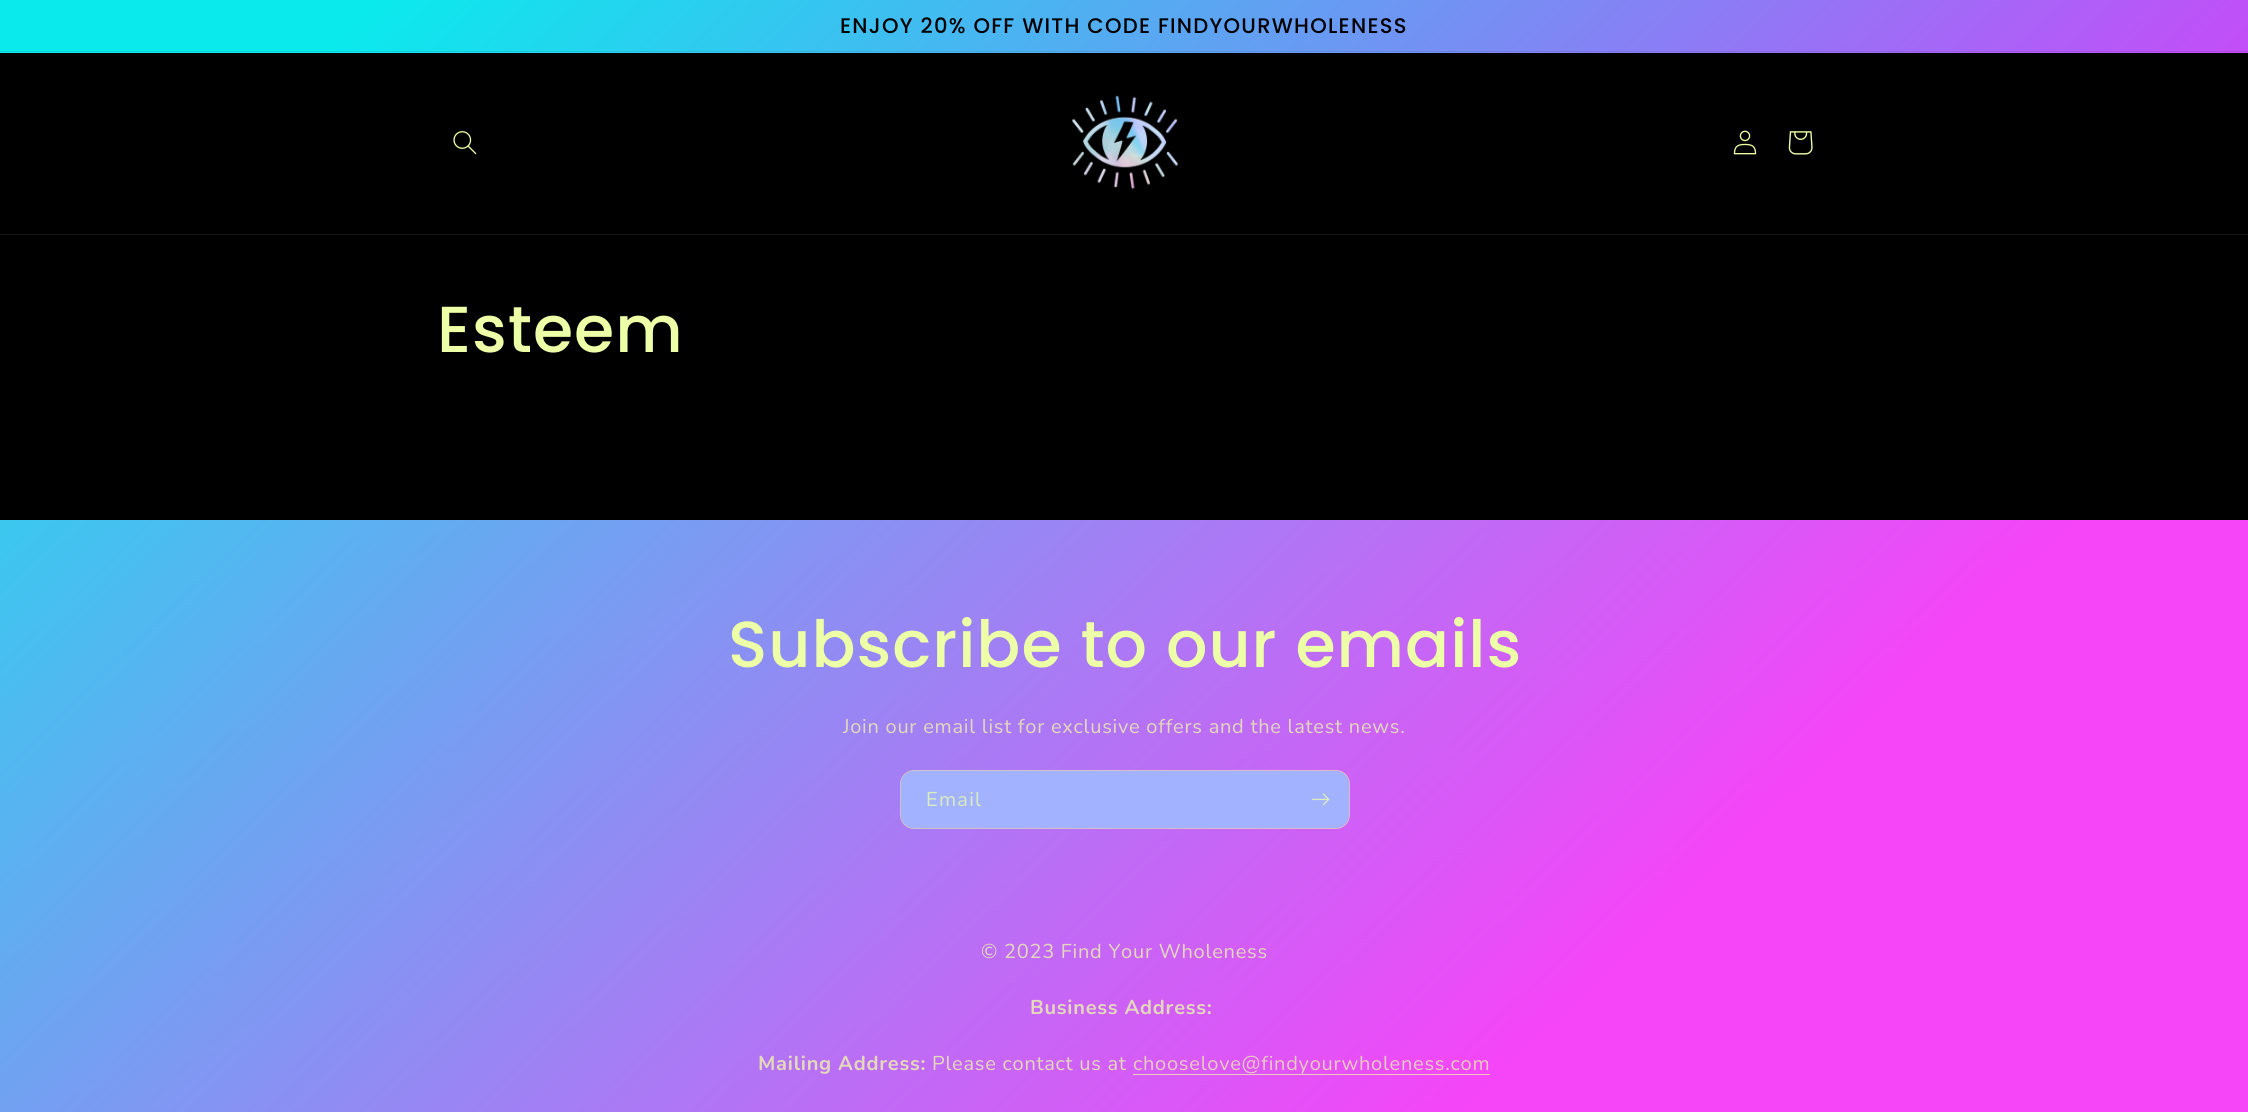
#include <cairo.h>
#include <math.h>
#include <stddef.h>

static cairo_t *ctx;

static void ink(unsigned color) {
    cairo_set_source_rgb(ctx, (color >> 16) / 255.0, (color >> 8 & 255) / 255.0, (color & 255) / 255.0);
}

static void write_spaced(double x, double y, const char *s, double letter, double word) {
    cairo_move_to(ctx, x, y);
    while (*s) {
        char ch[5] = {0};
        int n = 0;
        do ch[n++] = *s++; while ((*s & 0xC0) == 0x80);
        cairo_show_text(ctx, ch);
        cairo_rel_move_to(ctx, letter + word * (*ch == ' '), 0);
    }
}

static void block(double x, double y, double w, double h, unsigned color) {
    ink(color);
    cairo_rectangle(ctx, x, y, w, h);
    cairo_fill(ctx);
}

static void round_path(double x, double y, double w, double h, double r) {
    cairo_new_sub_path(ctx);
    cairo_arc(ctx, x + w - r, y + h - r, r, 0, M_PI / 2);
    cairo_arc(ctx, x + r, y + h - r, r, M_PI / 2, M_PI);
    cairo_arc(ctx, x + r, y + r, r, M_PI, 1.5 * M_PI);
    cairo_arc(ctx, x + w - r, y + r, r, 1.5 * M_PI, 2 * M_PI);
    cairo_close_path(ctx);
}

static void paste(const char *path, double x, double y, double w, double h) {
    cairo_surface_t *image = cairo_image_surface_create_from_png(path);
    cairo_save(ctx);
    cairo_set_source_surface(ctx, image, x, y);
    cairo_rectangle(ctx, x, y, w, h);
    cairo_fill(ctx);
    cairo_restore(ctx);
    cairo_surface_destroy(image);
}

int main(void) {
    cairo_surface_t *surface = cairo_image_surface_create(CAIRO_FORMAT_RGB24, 2248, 1112);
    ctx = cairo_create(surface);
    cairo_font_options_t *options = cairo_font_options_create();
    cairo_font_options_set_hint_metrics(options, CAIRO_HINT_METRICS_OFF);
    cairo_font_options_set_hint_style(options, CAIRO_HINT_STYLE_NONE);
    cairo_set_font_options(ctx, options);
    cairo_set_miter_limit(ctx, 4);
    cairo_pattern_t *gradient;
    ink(0x000000);
    cairo_paint(ctx);
    gradient = cairo_pattern_create_linear(304, -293, 1945, 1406);
    cairo_pattern_add_color_stop_rgba(gradient, 0.11, 0.039, 0.918, 0.929, 1);
    cairo_pattern_add_color_stop_rgba(gradient, 0.84, 0.976, 0.125, 0.988, 1);
    cairo_set_source(ctx, gradient);
    cairo_pattern_destroy(gradient);
    cairo_rectangle(ctx, 0, 0, 2248, 53);
    cairo_fill(ctx);
    gradient = cairo_pattern_create_linear(304, -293, 1945, 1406);
    cairo_pattern_add_color_stop_rgba(gradient, 0.11, 0.035, 0.843, 0.855, 1);
    cairo_pattern_add_color_stop_rgba(gradient, 0.84, 0.898, 0.114, 0.91, 1);
    cairo_set_source(ctx, gradient);
    cairo_pattern_destroy(gradient);
    cairo_rectangle(ctx, 0, 51, 2248, 1);
    cairo_fill(ctx);
    cairo_select_font_face(ctx, "Poppins Medium", CAIRO_FONT_SLANT_NORMAL, CAIRO_FONT_WEIGHT_NORMAL);
    cairo_set_font_size(ctx, 21.1);
    ink(0x000000);
    write_spaced(840, 33, "ENJOY 20% OFF WITH CODE FINDYOURWHOLENESS", 1.25, 0);
    block(0, 234, 2248, 1, 0x13140d);
    paste("pic1.png", 453, 131, 24, 24);
    paste("pic2.png", 1072, 95, 106, 94);
    paste("pic3.png", 1733, 130, 24, 25);
    paste("pic4.png", 1788, 131, 25, 24);
    cairo_set_font_size(ctx, 65);
    ink(0xedffa7);
    write_spaced(437, 352, "Esteem", 1, 0);
    gradient = cairo_pattern_create_linear(304, -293, 1945, 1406);
    cairo_pattern_add_color_stop_rgba(gradient, 0, 0.039, 0.918, 0.929, 1);
    cairo_pattern_add_color_stop_rgba(gradient, 0.77, 0.965, 0.267, 0.973, 1);
    cairo_set_source(ctx, gradient);
    cairo_pattern_destroy(gradient);
    cairo_rectangle(ctx, 0, 520, 2248, 374);
    cairo_fill(ctx);
    ink(0xedffa7);
    write_spaced(728, 667, "Subscribe to our emails", 1, 0);
    cairo_select_font_face(ctx, "Nunito", CAIRO_FONT_SLANT_NORMAL, CAIRO_FONT_WEIGHT_NORMAL);
    cairo_set_font_size(ctx, 20);
    ink(0xe4d8bb);
    write_spaced(843, 733, "Join our email list for exclusive offers and the latest news.", 0.75, 0);
    ink(0xa2b2fe);
    round_path(901, 771, 448, 57, 13);
    cairo_fill(ctx);
    round_path(900.5, 770.5, 449, 58, 13.5);
    cairo_set_source_rgba(ctx, 0.929, 1, 0.655, 0.55);
    cairo_set_line_width(ctx, 1);
    cairo_stroke(ctx);
    ink(0xdaecbd);
    write_spaced(926, 806, "Email", 1.25, 0);
    paste("pic5.png", 1312, 793, 18, 13);
    gradient = cairo_pattern_create_linear(304, -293, 1945, 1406);
    cairo_pattern_add_color_stop_rgba(gradient, 0, 0.039, 0.918, 0.929, 1);
    cairo_pattern_add_color_stop_rgba(gradient, 0.77, 0.965, 0.267, 0.973, 1);
    cairo_set_source(ctx, gradient);
    cairo_pattern_destroy(gradient);
    cairo_rectangle(ctx, 0, 894, 2248, 218);
    cairo_fill(ctx);
    gradient = cairo_pattern_create_linear(304, -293, 1945, 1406);
    cairo_pattern_add_color_stop_rgba(gradient, 0, 0.663, 0.976, 0.737, 1);
    cairo_pattern_add_color_stop_rgba(gradient, 0.77, 0.941, 0.78, 0.749, 1);
    cairo_set_source(ctx, gradient);
    cairo_pattern_destroy(gradient);
    cairo_rectangle(ctx, 1133, 1074, 357, 1);
    cairo_fill(ctx);
    ink(0xe4d8bb);
    write_spaced(981, 958, "© 2023 Find Your Wholeness", 0.75, 0);
    cairo_select_font_face(ctx, "Nunito", CAIRO_FONT_SLANT_NORMAL, CAIRO_FONT_WEIGHT_BOLD);
    write_spaced(1030, 1014, "Business Address:", 0.75, 0);
    write_spaced(758, 1070, "Mailing Address:", 0.75, 0);
    cairo_select_font_face(ctx, "Nunito", CAIRO_FONT_SLANT_NORMAL, CAIRO_FONT_WEIGHT_NORMAL);
    write_spaced(932, 1070, "Please contact us at", 0.75, 0);
    ink(0xeacbbf);
    write_spaced(1133, 1070, "chooselove@findyourwholeness.com", 0.75, 0);
    cairo_surface_write_to_png(surface, "screenshot.png");
    cairo_font_options_destroy(options);
    cairo_destroy(ctx);
    cairo_surface_destroy(surface);
    return 0;
}
